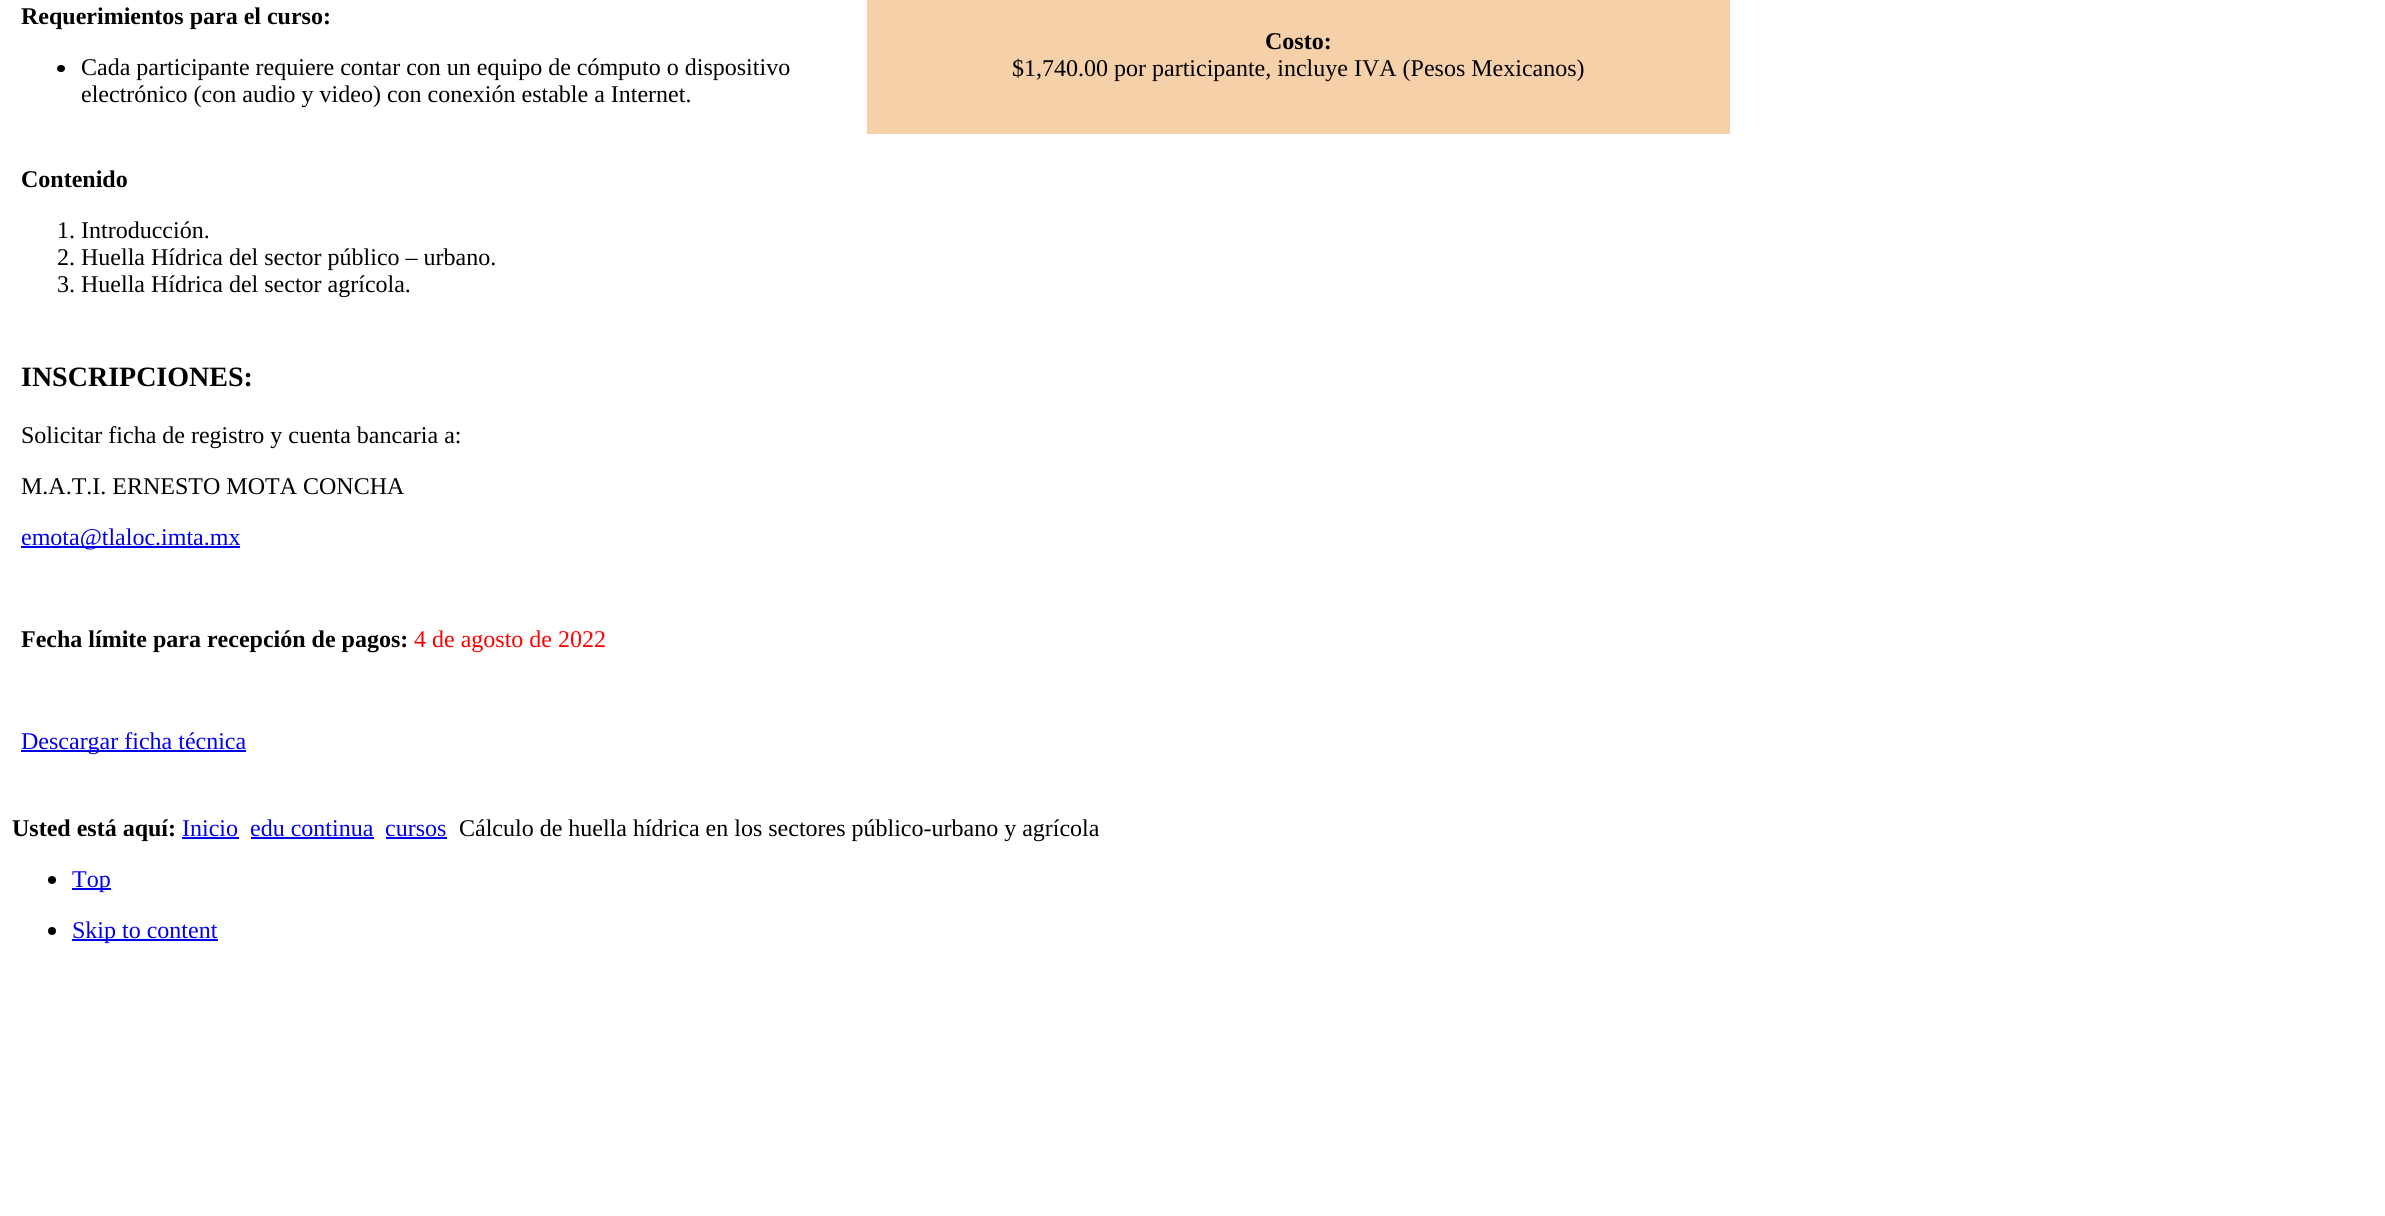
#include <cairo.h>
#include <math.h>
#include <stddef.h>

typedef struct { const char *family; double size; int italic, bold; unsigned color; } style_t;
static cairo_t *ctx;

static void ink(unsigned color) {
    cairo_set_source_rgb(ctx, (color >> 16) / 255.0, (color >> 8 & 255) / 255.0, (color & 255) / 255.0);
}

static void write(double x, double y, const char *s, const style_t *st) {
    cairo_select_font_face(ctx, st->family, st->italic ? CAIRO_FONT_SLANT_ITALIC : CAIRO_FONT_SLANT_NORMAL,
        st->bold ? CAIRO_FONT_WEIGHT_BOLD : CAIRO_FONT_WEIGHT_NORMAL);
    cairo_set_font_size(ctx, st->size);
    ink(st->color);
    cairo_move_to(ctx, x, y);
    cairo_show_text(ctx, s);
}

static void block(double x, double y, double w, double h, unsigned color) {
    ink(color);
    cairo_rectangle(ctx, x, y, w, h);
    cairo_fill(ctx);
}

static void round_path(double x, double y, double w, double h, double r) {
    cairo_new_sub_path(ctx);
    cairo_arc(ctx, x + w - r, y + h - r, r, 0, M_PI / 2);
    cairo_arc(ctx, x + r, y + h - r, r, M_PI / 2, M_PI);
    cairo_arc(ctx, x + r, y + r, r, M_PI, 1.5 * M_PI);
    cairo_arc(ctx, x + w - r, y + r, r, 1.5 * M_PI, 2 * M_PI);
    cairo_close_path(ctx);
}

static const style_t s1 = {"Liberation Serif", 24, 0, 1, 0x000000};
static const style_t s2 = {"Liberation Serif", 24, 0, 0, 0x000000};
static const style_t s3 = {"Liberation Serif", 28, 0, 1, 0x000000};
static const style_t s4 = {"Liberation Serif", 24, 0, 0, 0x0000ee};
static const style_t s5 = {"Liberation Serif", 24, 0, 0, 0xff0000};

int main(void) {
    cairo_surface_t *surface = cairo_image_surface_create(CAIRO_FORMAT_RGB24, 2385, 1216);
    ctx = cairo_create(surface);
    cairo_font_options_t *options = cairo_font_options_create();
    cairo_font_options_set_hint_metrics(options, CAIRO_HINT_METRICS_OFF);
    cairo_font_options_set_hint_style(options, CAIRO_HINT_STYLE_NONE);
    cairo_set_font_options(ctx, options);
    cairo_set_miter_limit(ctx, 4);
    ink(0xffffff);
    cairo_paint(ctx);
    write(21, 24, "Requerimientos para el curso:", &s1);
    round_path(57, 65, 8, 7, 3.5);
    cairo_fill(ctx);
    write(81, 75, "Cada participante requiere contar con un equipo de cómputo o dispositivo", &s2);
    write(81, 102, "electrónico (con audio y video) con conexión estable a Internet.", &s2);
    block(867, 0, 863, 134, 0xf5d0a9);
    write(1265, 49, "Costo:", &s1);
    write(1012, 76, "$1,740.00 por participante, incluye IVA (Pesos Mexicanos)", &s2);
    write(21, 187, "Contenido", &s1);
    write(57, 238, "1. Introducción.", &s2);
    write(57, 265, "2. Huella Hídrica del sector público – urbano.", &s2);
    write(57, 292, "3. Huella Hídrica del sector agrícola.", &s2);
    write(21, 386, "INSCRIPCIONES:", &s3);
    write(21, 443, "Solicitar ficha de registro y cuenta bancaria a:", &s2);
    write(21, 494, "M.A.T.I. ERNESTO MOTA CONCHA", &s2);
    block(21, 546, 219, 2, 0x0000ee);
    write(21, 545, "emota@tlaloc.imta.mx", &s4);
    write(21, 647, "Fecha límite para recepción de pagos:", &s1);
    write(414, 647, "4 de agosto de 2022", &s5);
    block(21, 750, 225, 2, 0x0000ee);
    write(21, 749, "Descargar ficha técnica", &s4);
    write(12, 836, "Usted está aquí:", &s1);
    write(182, 836, "Inicio", &s4);
    block(182, 837, 57, 2, 0x0000ee);
    write(250, 836, "edu continua", &s4);
    block(251, 837, 123, 2, 0x0000ee);
    write(385, 836, "cursos", &s4);
    block(386, 837, 61, 2, 0x0000ee);
    write(459, 836, "Cálculo de huella hídrica en los sectores público-urbano y agrícola", &s2);
    cairo_new_path(ctx);
    cairo_arc(ctx, 52, 880, 4, 0, 2 * M_PI);
    cairo_fill(ctx);
    block(72, 888, 39, 2, 0x0000ee);
    write(72, 887, "Top", &s4);
    ink(0x000000);
    cairo_new_path(ctx);
    cairo_arc(ctx, 52, 931, 4, 0, 2 * M_PI);
    cairo_fill(ctx);
    block(72, 939, 146, 2, 0x0000ee);
    write(72, 938, "Skip to content", &s4);
    cairo_surface_write_to_png(surface, "screenshot.png");
    cairo_font_options_destroy(options);
    cairo_destroy(ctx);
    cairo_surface_destroy(surface);
    return 0;
}
